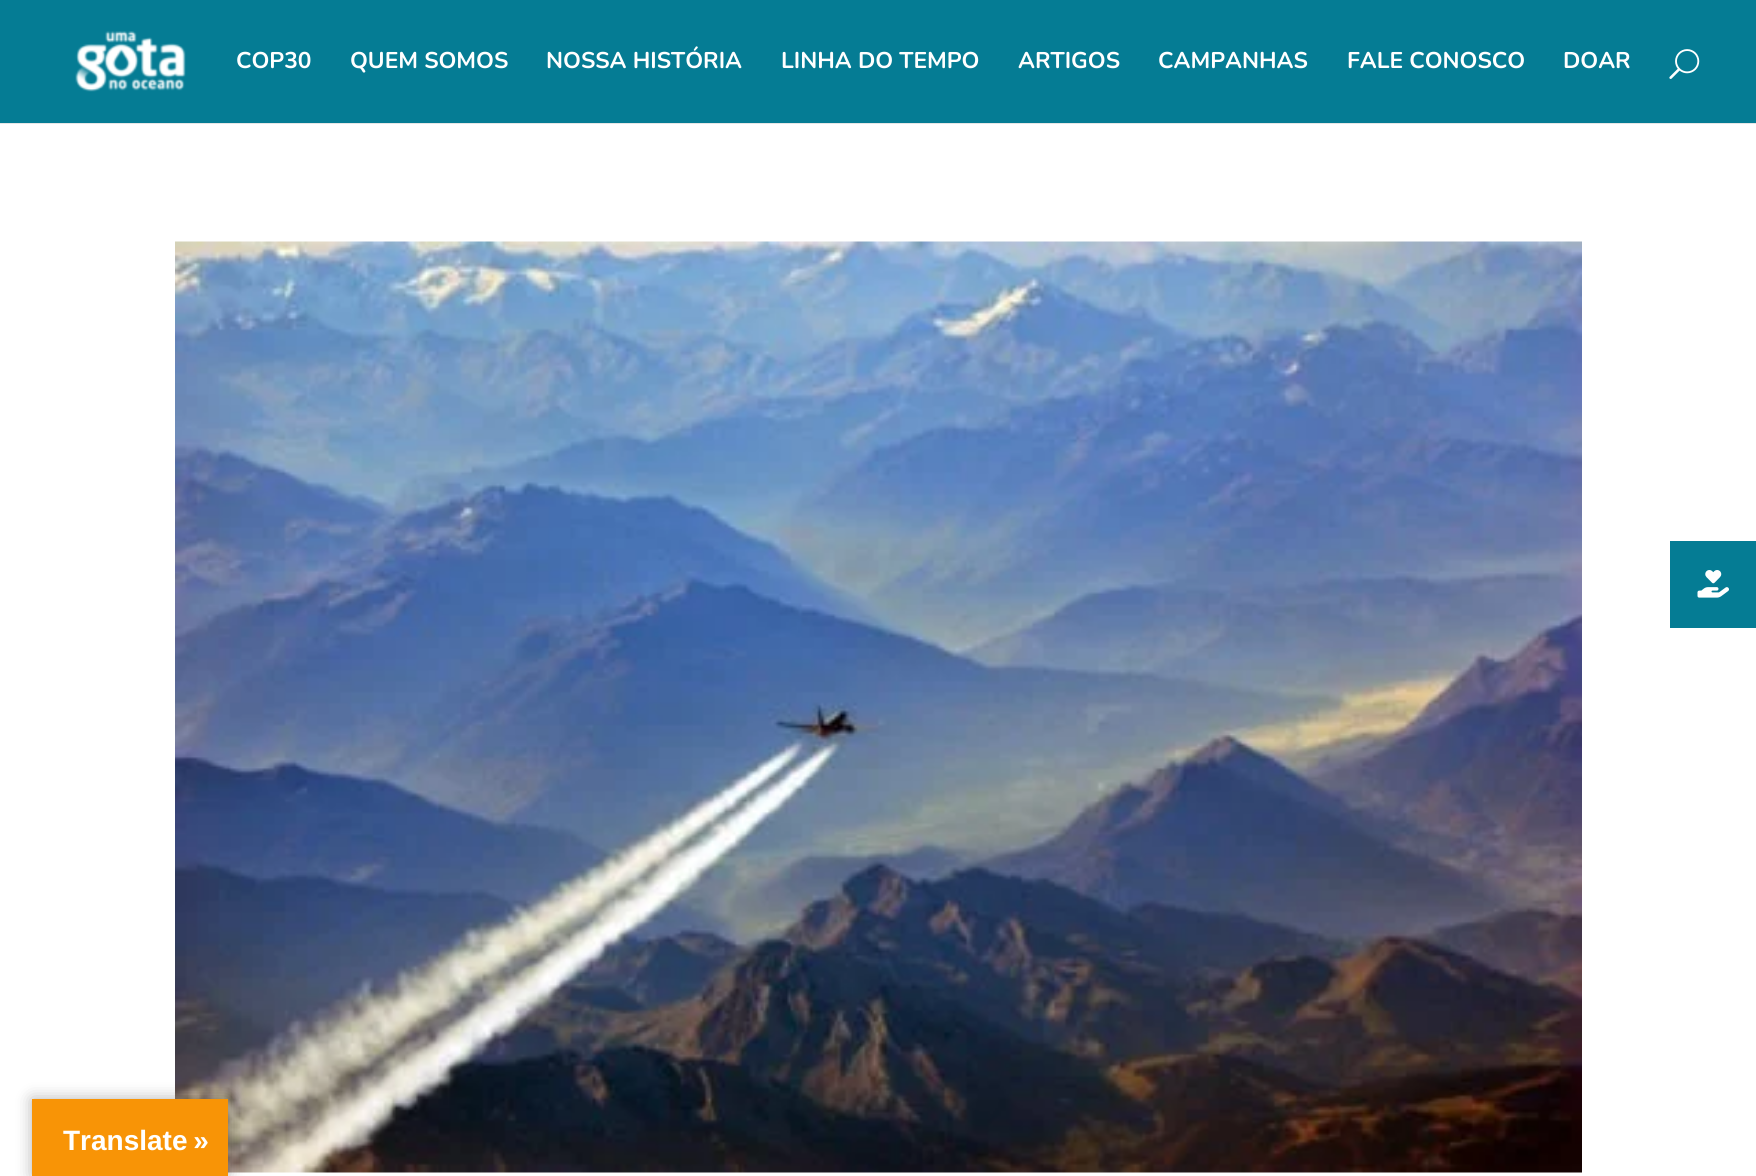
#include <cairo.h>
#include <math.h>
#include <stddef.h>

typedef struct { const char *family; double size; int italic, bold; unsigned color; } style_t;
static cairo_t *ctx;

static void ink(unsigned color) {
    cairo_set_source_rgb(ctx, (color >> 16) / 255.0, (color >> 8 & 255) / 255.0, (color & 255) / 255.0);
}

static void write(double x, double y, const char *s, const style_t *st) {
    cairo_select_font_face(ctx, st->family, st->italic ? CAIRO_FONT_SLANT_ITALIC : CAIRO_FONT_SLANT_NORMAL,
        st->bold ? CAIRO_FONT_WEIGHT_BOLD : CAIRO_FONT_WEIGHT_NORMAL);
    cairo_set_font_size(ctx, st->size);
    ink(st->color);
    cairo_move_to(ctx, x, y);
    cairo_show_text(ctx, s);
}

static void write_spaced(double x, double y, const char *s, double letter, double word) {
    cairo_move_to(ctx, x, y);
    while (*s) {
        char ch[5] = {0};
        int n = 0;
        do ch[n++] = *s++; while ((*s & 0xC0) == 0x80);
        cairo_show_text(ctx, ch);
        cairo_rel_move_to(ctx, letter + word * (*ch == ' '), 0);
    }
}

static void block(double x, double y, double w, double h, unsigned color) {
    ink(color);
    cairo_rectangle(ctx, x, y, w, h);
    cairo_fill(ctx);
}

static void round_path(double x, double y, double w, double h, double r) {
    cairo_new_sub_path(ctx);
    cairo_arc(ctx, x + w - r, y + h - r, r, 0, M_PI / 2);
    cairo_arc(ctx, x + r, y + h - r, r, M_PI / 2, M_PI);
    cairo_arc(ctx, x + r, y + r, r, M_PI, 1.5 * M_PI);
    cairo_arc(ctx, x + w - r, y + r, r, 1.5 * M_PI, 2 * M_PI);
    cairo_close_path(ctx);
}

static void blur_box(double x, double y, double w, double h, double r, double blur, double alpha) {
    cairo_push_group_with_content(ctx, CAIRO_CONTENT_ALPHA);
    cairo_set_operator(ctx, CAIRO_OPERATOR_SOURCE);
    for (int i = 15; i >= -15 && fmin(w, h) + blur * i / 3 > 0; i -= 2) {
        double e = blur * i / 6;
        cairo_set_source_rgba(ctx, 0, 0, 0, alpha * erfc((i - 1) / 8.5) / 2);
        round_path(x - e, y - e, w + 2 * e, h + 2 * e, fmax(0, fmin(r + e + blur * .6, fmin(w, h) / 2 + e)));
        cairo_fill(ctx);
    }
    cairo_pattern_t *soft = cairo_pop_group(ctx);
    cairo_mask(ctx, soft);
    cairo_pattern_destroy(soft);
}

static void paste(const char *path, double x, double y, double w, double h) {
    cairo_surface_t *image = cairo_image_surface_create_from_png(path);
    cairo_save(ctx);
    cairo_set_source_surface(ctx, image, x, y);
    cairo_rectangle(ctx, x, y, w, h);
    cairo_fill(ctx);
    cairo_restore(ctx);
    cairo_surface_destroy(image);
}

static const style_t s1 = {"Nunito", 22.75, 0, 1, 0xffffff};

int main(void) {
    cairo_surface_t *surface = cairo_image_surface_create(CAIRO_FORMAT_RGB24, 1756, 1176);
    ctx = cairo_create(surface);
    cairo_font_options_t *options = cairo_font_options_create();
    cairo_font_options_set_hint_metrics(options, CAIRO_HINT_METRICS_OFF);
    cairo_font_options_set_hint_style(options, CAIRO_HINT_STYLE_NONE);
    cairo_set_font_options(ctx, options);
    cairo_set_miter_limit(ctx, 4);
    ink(0xffffff);
    cairo_paint(ctx);
    block(0, 123, 1756, 1, 0xe6e6e6);
    block(0, 0, 1756, 123, 0x057c94);
    paste("pic1.png", 75, 31, 111, 61);
    write(236, 68, "COP30", &s1);
    write(350, 68, "QUEM SOMOS", &s1);
    write(546, 68, "NOSSA HISTÓRIA", &s1);
    write(781, 68, "LINHA DO TEMPO", &s1);
    write(1018, 68, "ARTIGOS", &s1);
    write(1158, 68, "CAMPANHAS", &s1);
    write(1347, 68, "FALE CONOSCO", &s1);
    write(1563, 68, "DOAR", &s1);
    paste("pic2.png", 1669, 49, 31, 30);
    paste("pic3.png", 175, 241, 1407, 932);
    block(1670, 541, 86, 87, 0x057c94);
    paste("pic4.png", 1697, 570, 32, 28);
    ink(0x000000);
    blur_box(32, 1099, 196, 77, 0, 8, 0.3);
    block(32, 1099, 196, 77, 0xf89406);
    cairo_select_font_face(ctx, "Liberation Sans", CAIRO_FONT_SLANT_NORMAL, CAIRO_FONT_WEIGHT_BOLD);
    cairo_set_font_size(ctx, 28);
    ink(0xffffff);
    write_spaced(63, 1150, "Translate »", 0, -2);
    cairo_surface_write_to_png(surface, "screenshot.png");
    cairo_font_options_destroy(options);
    cairo_destroy(ctx);
    cairo_surface_destroy(surface);
    return 0;
}
